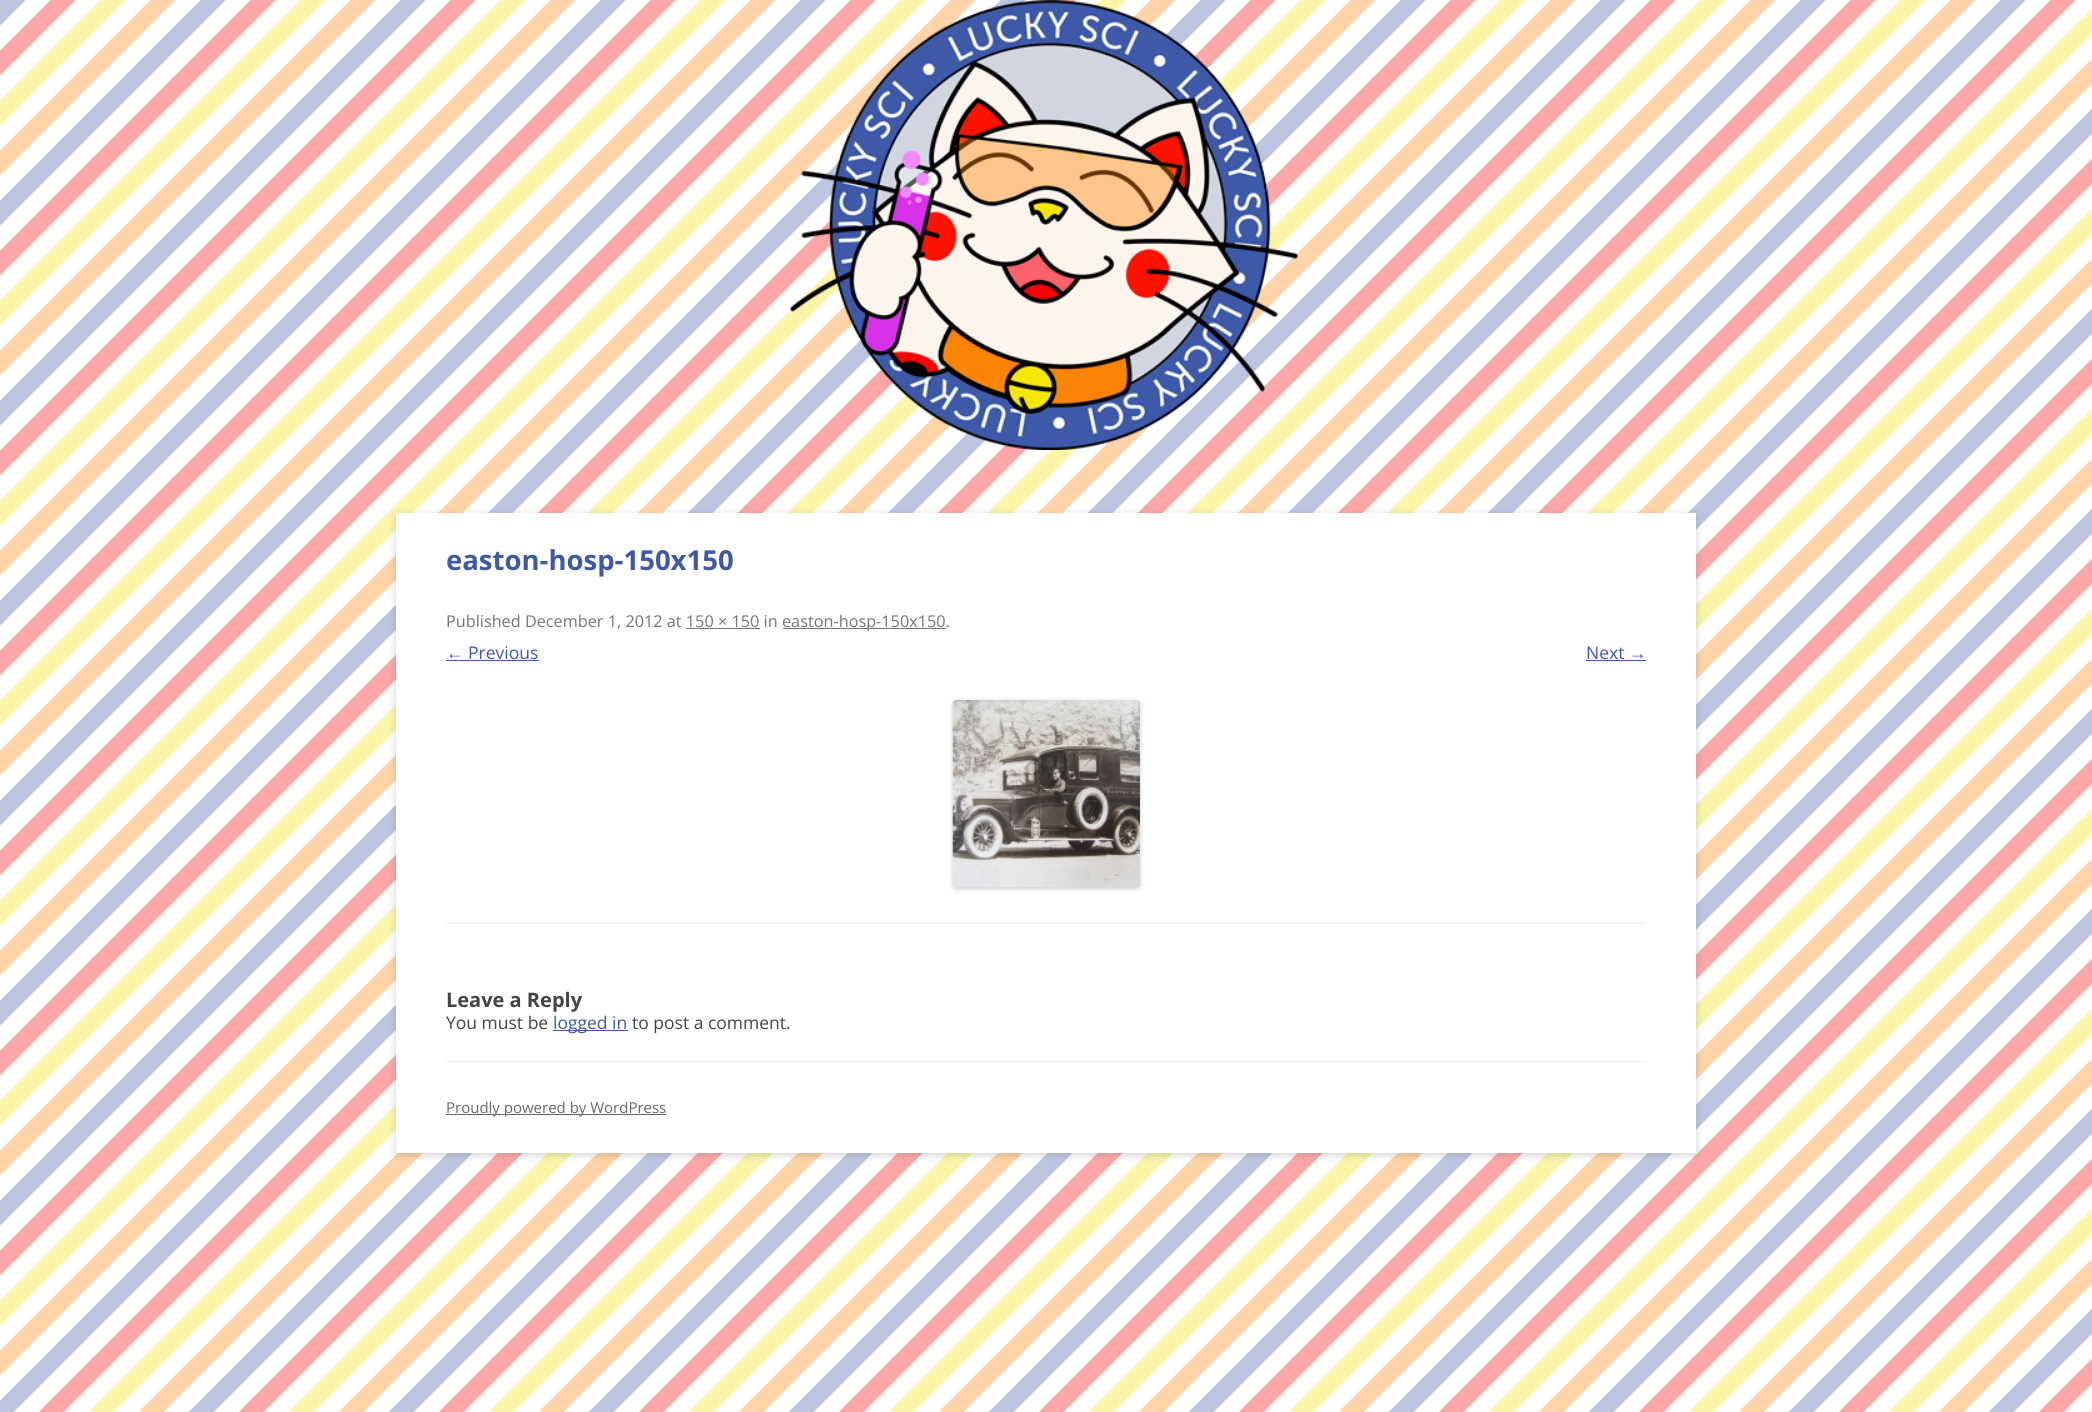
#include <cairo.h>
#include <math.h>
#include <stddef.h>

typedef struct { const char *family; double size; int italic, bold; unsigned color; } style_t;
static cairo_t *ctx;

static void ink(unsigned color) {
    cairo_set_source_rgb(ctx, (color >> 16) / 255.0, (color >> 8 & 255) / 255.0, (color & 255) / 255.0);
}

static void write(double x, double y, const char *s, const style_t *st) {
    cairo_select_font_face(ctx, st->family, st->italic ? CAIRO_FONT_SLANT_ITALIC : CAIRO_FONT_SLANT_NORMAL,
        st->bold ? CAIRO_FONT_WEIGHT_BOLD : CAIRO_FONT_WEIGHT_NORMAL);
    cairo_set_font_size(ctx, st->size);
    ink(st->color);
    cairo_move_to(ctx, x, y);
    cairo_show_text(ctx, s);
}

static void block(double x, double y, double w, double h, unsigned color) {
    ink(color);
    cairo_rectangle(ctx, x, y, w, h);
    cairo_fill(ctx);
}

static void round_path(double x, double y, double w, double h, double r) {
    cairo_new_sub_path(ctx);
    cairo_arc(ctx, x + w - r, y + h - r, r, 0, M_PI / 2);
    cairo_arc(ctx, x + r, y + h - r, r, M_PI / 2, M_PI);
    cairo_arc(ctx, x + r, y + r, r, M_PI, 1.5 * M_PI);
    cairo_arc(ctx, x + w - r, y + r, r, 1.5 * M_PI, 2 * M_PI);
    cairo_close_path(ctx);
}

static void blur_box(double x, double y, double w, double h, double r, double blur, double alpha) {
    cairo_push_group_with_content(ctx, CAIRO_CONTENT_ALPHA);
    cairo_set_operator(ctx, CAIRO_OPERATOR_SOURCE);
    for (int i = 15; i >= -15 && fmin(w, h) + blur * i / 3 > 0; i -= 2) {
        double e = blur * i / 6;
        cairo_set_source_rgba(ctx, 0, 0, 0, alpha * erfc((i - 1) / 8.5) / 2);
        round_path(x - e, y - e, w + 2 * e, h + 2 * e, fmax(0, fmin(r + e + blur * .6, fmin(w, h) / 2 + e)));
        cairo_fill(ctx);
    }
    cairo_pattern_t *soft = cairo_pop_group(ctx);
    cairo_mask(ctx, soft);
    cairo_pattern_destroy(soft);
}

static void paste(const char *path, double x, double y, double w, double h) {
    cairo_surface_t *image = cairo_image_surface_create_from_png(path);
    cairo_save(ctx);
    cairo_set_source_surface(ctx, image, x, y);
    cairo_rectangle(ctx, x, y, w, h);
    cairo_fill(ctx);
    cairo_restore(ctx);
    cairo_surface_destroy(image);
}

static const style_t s1 = {"Open Sans", 27.5, 0, 1, 0x3d59a8};
static const style_t s2 = {"Open Sans", 16.25, 0, 0, 0x757575};
static const style_t s3 = {"Liberation Sans", 17.5, 0, 0, 0x3d59a8};
static const style_t s4 = {"Open Sans", 17.5, 0, 0, 0x3d59a8};
static const style_t s5 = {"Open Sans", 20, 0, 1, 0x444444};
static const style_t s6 = {"Open Sans", 17.5, 0, 0, 0x444444};
static const style_t s7 = {"Open Sans", 15, 0, 0, 0x686868};

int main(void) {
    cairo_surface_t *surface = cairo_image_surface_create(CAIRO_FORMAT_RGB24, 2092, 1412);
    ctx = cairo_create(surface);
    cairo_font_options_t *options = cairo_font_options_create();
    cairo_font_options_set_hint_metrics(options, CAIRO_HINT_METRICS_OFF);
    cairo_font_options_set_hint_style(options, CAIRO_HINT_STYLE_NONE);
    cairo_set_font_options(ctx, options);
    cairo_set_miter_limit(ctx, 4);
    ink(0xffffff);
    cairo_paint(ctx);
    paste("pic1.png", 0, 0, 2092, 1412);
    paste("pic2.png", 789, 0, 509, 450);
    ink(0x646464);
    blur_box(396, 515, 1300, 640, 0, 4, 0.3);
    block(396, 513, 1300, 640, 0xffffff);
    block(446, 923, 1200, 1, 0xededed);
    write(446, 570, "easton-hosp-150x150", &s1);
    write(446, 627, "Published December 1, 2012 at 150 × 150 in", &s2);
    block(783, 628, 163, 1, 0x757575);
    write(782, 627, "easton-hosp-150x150.", &s2);
    block(686, 628, 74, 1, 0x757575);
    write(446, 659, "←", &s3);
    block(446, 660, 93, 1, 0x3d59a8);
    write(468, 659, "Previous", &s4);
    write(1586, 659, "Next", &s4);
    write(1629, 659, "→", &s3);
    block(1586, 660, 60, 1, 0x3d59a8);
    ink(0x000000);
    blur_box(953, 701, 187, 188, 4, 2.5, 0.2);
    paste("pic3.png", 952, 700, 188, 188);
    write(446, 1007, "Leave a Reply", &s5);
    write(446, 1029, "You must be", &s6);
    block(553, 1030, 75, 1, 0x3d59a8);
    write(553, 1029, "logged in", &s4);
    write(632, 1029, "to post a comment.", &s6);
    block(446, 1061, 1200, 1, 0xededed);
    block(446, 1114, 220, 1, 0x686868);
    write(446, 1113, "Proudly powered by WordPress", &s7);
    cairo_surface_write_to_png(surface, "screenshot.png");
    cairo_font_options_destroy(options);
    cairo_destroy(ctx);
    cairo_surface_destroy(surface);
    return 0;
}
